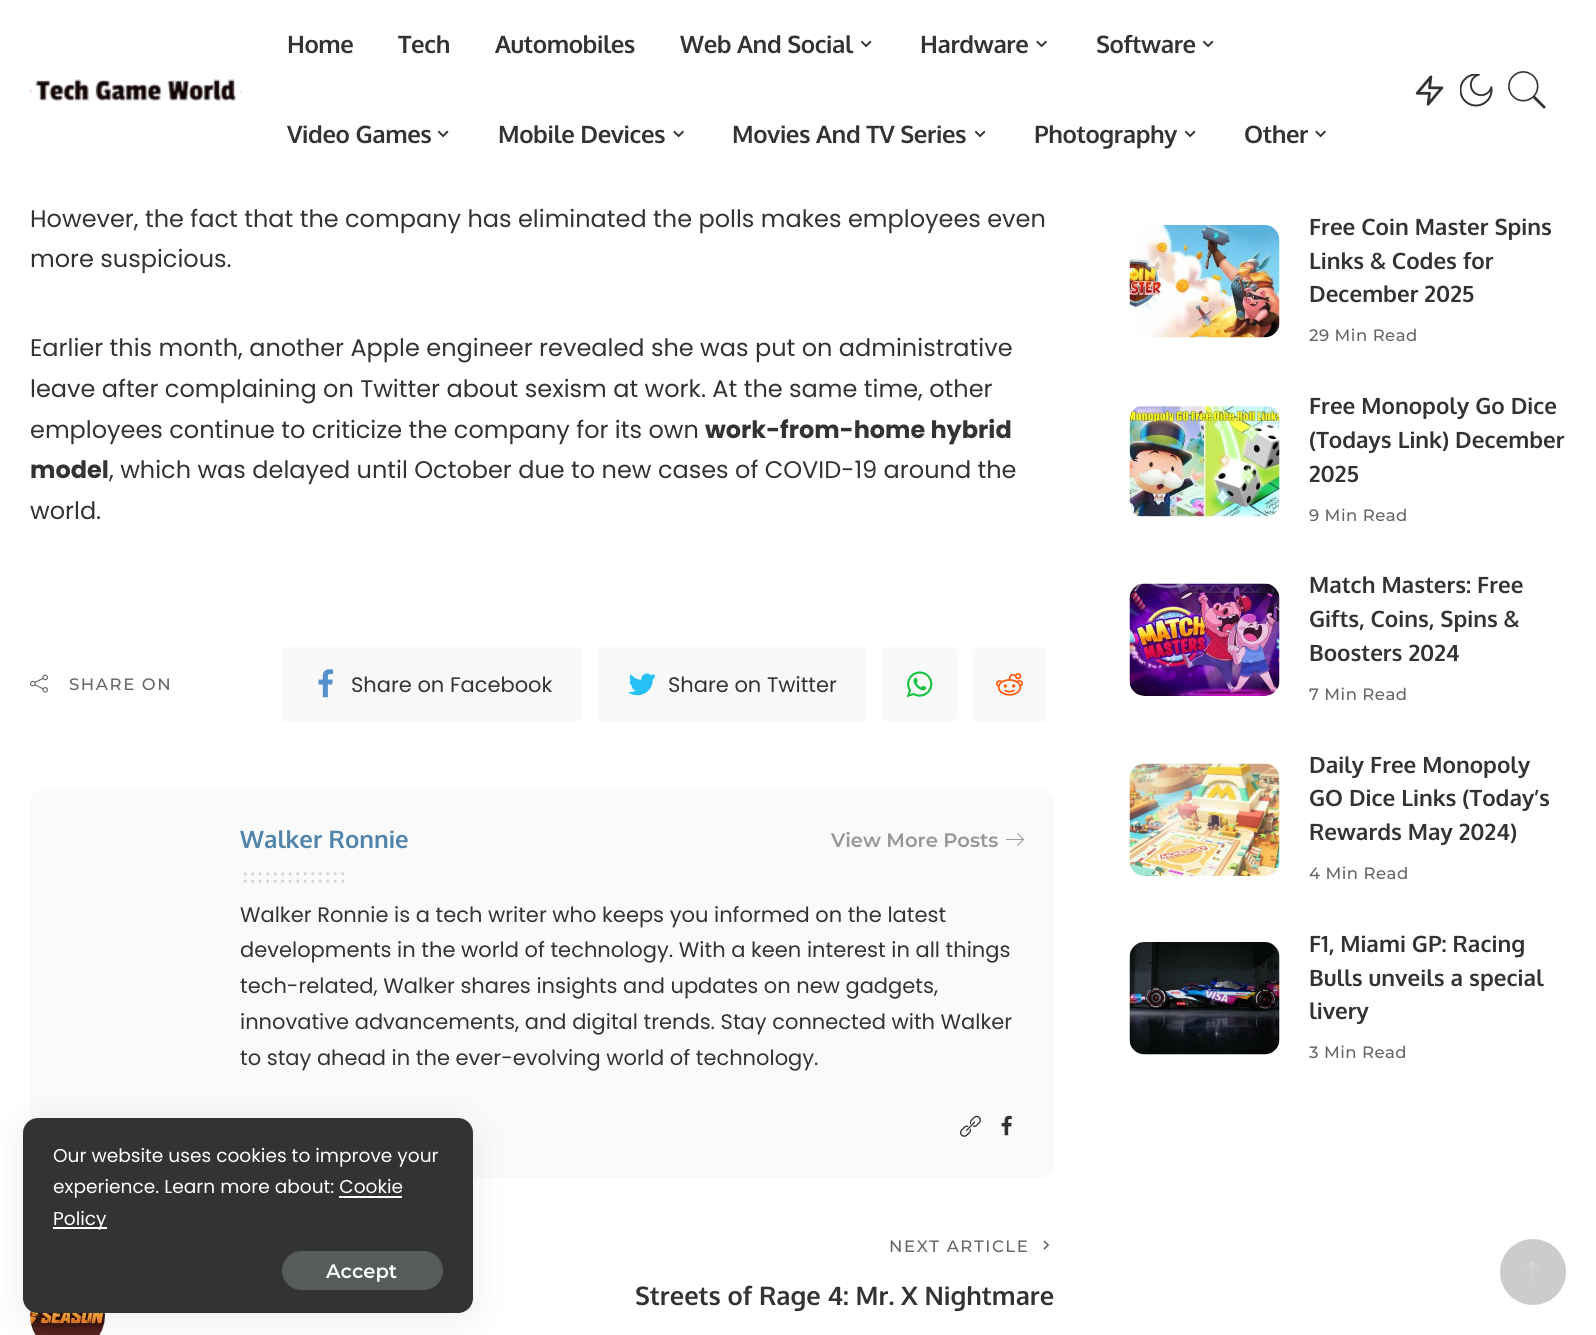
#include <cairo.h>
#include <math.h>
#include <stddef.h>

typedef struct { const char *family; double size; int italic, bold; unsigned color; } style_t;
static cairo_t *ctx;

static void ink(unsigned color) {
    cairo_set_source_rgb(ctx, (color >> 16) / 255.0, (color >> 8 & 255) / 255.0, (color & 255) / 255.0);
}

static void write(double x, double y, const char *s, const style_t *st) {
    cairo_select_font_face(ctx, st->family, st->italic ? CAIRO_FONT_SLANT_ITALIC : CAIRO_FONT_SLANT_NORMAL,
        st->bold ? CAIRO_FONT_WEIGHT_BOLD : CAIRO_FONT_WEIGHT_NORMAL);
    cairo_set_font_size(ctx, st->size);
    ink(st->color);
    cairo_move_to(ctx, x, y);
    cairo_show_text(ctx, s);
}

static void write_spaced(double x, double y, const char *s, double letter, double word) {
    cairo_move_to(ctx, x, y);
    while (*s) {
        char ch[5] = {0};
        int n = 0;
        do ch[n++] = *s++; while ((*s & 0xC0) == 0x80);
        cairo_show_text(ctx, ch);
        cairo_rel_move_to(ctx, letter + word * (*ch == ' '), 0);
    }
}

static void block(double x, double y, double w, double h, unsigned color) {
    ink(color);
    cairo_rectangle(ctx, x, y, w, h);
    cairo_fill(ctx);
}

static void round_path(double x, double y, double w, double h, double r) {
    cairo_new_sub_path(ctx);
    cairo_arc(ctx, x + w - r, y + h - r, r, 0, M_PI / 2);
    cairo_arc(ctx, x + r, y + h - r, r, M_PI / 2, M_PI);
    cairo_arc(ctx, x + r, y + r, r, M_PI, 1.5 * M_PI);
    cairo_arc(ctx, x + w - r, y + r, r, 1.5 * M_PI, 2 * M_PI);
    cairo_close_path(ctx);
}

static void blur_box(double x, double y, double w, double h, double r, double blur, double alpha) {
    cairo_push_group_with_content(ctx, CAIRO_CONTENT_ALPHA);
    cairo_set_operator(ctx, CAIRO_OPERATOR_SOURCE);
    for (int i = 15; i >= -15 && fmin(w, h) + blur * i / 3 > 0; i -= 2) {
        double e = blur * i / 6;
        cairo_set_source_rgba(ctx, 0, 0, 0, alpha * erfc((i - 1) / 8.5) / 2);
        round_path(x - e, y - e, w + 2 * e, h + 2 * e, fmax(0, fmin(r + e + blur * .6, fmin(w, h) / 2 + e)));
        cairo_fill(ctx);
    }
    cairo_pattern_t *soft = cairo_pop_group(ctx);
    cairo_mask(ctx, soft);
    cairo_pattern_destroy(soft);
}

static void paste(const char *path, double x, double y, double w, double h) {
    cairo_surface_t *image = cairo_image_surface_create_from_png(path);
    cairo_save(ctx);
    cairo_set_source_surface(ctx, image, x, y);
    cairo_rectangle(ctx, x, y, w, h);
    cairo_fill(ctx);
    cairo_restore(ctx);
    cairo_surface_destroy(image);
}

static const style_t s1 = {"Poppins", 24, 0, 0, 0x333333};
static const style_t s2 = {"Poppins", 24, 0, 1, 0x333333};
static const style_t s3 = {"Poppins", 21, 0, 0, 0x333333};
static const style_t s4 = {"Oxygen", 24, 0, 1, 0x5084ab};
static const style_t s5 = {"Montserrat SemiBold", 19.5, 0, 0, 0x979797};
static const style_t s6 = {"Oxygen", 25.5, 0, 1, 0x333333};
static const style_t s7 = {"Oxygen", 22.5, 0, 1, 0x333333};
static const style_t s8 = {"Poppins", 18.6, 0, 0, 0xffffff};
static const style_t s9 = {"Montserrat SemiBold", 19.5, 0, 0, 0xffffff};

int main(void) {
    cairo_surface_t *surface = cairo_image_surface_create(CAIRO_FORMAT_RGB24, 1596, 1335);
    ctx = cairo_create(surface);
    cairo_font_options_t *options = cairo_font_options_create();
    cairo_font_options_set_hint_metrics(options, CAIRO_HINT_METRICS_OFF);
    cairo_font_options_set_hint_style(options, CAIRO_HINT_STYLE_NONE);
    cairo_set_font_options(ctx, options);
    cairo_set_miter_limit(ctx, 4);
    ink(0xffffff);
    cairo_paint(ctx);
    paste("pic1.png", 30, 79, 212, 22);
    cairo_select_font_face(ctx, "Oxygen", CAIRO_FONT_SLANT_NORMAL, CAIRO_FONT_WEIGHT_BOLD);
    cairo_set_font_size(ctx, 24);
    ink(0x333333);
    write_spaced(287, 53, "Home", -0.4, 0);
    write_spaced(398, 53, "Tech", -0.4, 0);
    write_spaced(495, 53, "Automobiles", -0.4, 0);
    write_spaced(680, 53, "Web And Social", -0.4, 0);
    paste("pic2.png", 860, 40, 12, 8);
    write_spaced(920, 53, "Hardware", -0.4, 0);
    paste("pic3.png", 1036, 40, 11, 8);
    write_spaced(1096, 53, "Software", -0.4, 0);
    paste("pic2.png", 1202, 40, 12, 8);
    write_spaced(287, 143, "Video Games", -0.4, 0);
    paste("pic2.png", 437, 130, 12, 8);
    write_spaced(498, 143, "Mobile Devices", -0.4, 0);
    paste("pic3.png", 673, 130, 11, 8);
    write_spaced(732, 143, "Movies And TV Series", -0.4, 0);
    paste("pic2.png", 974, 130, 12, 8);
    write_spaced(1034, 143, "Photography", -0.4, 0);
    paste("pic2.png", 1184, 130, 12, 8);
    write_spaced(1244, 143, "Other", -0.4, 0);
    paste("pic3.png", 1315, 130, 11, 8);
    paste("pic4.png", 1415, 75, 29, 31);
    paste("pic5.png", 1460, 74, 33, 33);
    paste("pic6.png", 1508, 71, 38, 38);
    write(30, 227, "However, the fact that the company has eliminated the polls makes employees even", &s1);
    write(30, 267, "more suspicious.", &s1);
    write(30, 356, "Earlier this month, another Apple engineer revealed she was put on administrative", &s1);
    write(30, 397, "leave after complaining on Twitter about sexism at work. At the same time, other", &s1);
    write(30, 438, "employees continue to criticize the company for its own", &s1);
    write(705, 438, "work-from-home hybrid", &s2);
    write(30, 478, "model", &s2);
    write(109, 478, ", which was delayed until October due to new cases of COVID-19 around the", &s1);
    write(30, 519, "world.", &s1);
    paste("pic7.png", 30, 674, 18, 19);
    cairo_select_font_face(ctx, "Montserrat Medium", CAIRO_FONT_SLANT_NORMAL, CAIRO_FONT_WEIGHT_NORMAL);
    cairo_set_font_size(ctx, 16.5);
    ink(0x666666);
    write_spaced(69, 690, "SHARE ON", 1.6, 0);
    ink(0xf9f9f9);
    round_path(281, 647, 301, 75, 6);
    cairo_fill(ctx);
    paste("pic8.png", 318, 669, 15, 29);
    write(351, 692, "Share on Facebook", &s3);
    ink(0xf9f9f9);
    round_path(597, 647, 270, 75, 6);
    cairo_fill(ctx);
    paste("pic9.png", 628, 673, 28, 23);
    write(668, 692, "Share on Twitter", &s3);
    ink(0xf9f9f9);
    round_path(882, 647, 75, 75, 6);
    cairo_fill(ctx);
    paste("pic10.png", 906, 671, 27, 27);
    round_path(972, 647, 75, 75, 6);
    cairo_fill(ctx);
    paste("pic11.png", 996, 673, 27, 23);
    ink(0xfafafa);
    round_path(30, 789, 1025, 389, 15);
    cairo_fill(ctx);
    write(240, 848, "Walker Ronnie", &s4);
    write(831, 847, "View More Posts", &s5);
    paste("pic12.png", 1006, 833, 18, 13);
    cairo_new_path(ctx);
    cairo_move_to(ctx, 245.2, 873.8);
    cairo_line_to(ctx, 343, 873.8);
    ink(0xd2d2d2);
    cairo_set_line_width(ctx, 3);
    cairo_set_line_cap(ctx, CAIRO_LINE_CAP_ROUND);
    cairo_set_dash(ctx, (double[]){0, 7.5}, 2, 0);
    cairo_stroke(ctx);
    cairo_new_path(ctx);
    cairo_move_to(ctx, 245.2, 881.2);
    cairo_line_to(ctx, 343, 881.2);
    cairo_stroke(ctx);
    write(240, 922, "Walker Ronnie is a tech writer who keeps you informed on the latest", &s3);
    write(240, 957, "developments in the world of technology. With a keen interest in all things", &s3);
    write(240, 993, "tech-related, Walker shares insights and updates on new gadgets,", &s3);
    write(240, 1029, "innovative advancements, and digital trends. Stay connected with Walker", &s3);
    write(240, 1065, "to stay ahead in the ever-evolving world of technology.", &s3);
    paste("pic13.png", 960, 1115, 21, 22);
    paste("pic14.png", 1001, 1115, 11, 21);
    cairo_select_font_face(ctx, "Montserrat Medium", CAIRO_FONT_SLANT_NORMAL, CAIRO_FONT_WEIGHT_NORMAL);
    cairo_set_font_size(ctx, 16.5);
    ink(0x666666);
    write_spaced(889, 1252, "NEXT ARTICLE", 1.6, 0);
    paste("pic15.png", 1043, 1240, 7, 10);
    write(635, 1305, "Streets of Rage 4: Mr. X Nightmare", &s6);
    paste("pic16.png", 30, 1310, 75, 25);
    paste("pic17.png", 1129, 225, 151, 113);
    write(1309, 235, "Free Coin Master Spins", &s7);
    write(1309, 269, "Links & Codes for", &s7);
    write(1309, 302, "December 2025", &s7);
    cairo_select_font_face(ctx, "Montserrat Medium", CAIRO_FONT_SLANT_NORMAL, CAIRO_FONT_WEIGHT_NORMAL);
    cairo_set_font_size(ctx, 16.5);
    ink(0x666666);
    write_spaced(1309, 341, "29 Min Read", 0.5, 0);
    paste("pic18.png", 1129, 405, 151, 113);
    write(1309, 414, "Free Monopoly Go Dice", &s7);
    write(1309, 448, "(Todays Link) December", &s7);
    write(1309, 482, "2025", &s7);
    cairo_select_font_face(ctx, "Montserrat Medium", CAIRO_FONT_SLANT_NORMAL, CAIRO_FONT_WEIGHT_NORMAL);
    cairo_set_font_size(ctx, 16.5);
    ink(0x666666);
    write_spaced(1309, 521, "9 Min Read", 0.5, 0);
    paste("pic19.png", 1129, 583, 151, 113);
    write(1309, 593, "Match Masters: Free", &s7);
    write(1309, 627, "Gifts, Coins, Spins &", &s7);
    write(1309, 661, "Boosters 2024", &s7);
    cairo_select_font_face(ctx, "Montserrat Medium", CAIRO_FONT_SLANT_NORMAL, CAIRO_FONT_WEIGHT_NORMAL);
    cairo_set_font_size(ctx, 16.5);
    ink(0x666666);
    write_spaced(1309, 700, "7 Min Read", 0.5, 0);
    paste("pic20.png", 1129, 763, 151, 113);
    write(1309, 773, "Daily Free Monopoly", &s7);
    write(1309, 806, "GO Dice Links (Today’s", &s7);
    write(1309, 840, "Rewards May 2024)", &s7);
    cairo_select_font_face(ctx, "Montserrat Medium", CAIRO_FONT_SLANT_NORMAL, CAIRO_FONT_WEIGHT_NORMAL);
    cairo_set_font_size(ctx, 16.5);
    ink(0x666666);
    write_spaced(1309, 879, "4 Min Read", 0.5, 0);
    paste("pic21.png", 1129, 942, 151, 113);
    write(1309, 952, "F1, Miami GP: Racing", &s7);
    write(1309, 986, "Bulls unveils a special", &s7);
    write(1309, 1019, "livery", &s7);
    cairo_select_font_face(ctx, "Montserrat Medium", CAIRO_FONT_SLANT_NORMAL, CAIRO_FONT_WEIGHT_NORMAL);
    cairo_set_font_size(ctx, 16.5);
    ink(0x666666);
    write_spaced(1309, 1058, "3 Min Read", 0.5, 0);
    ink(0x000000);
    blur_box(23, 1124, 450, 195, 15, 22.5, 0.07);
    ink(0x333333);
    round_path(23, 1118, 450, 195, 15);
    cairo_fill(ctx);
    write(53, 1162, "Our website uses cookies to improve your", &s8);
    write(53, 1193, "experience. Learn more about: Cookie", &s8);
    block(53, 1227, 54, 2, 0xffffff);
    write(53, 1225, "Policy", &s8);
    block(339, 1196, 63, 2, 0xffffff);
    ink(0x565c5c);
    round_path(282, 1251, 161, 39, 19.5);
    cairo_fill(ctx);
    write(326, 1278, "Accept", &s9);
    ink(0xcccccc);
    cairo_new_path(ctx);
    cairo_arc(ctx, 1533, 1272, 33, 0, 2 * M_PI);
    cairo_fill(ctx);
    paste("pic22.png", 1526, 1262, 13, 19);
    cairo_surface_write_to_png(surface, "screenshot.png");
    cairo_font_options_destroy(options);
    cairo_destroy(ctx);
    cairo_surface_destroy(surface);
    return 0;
}
